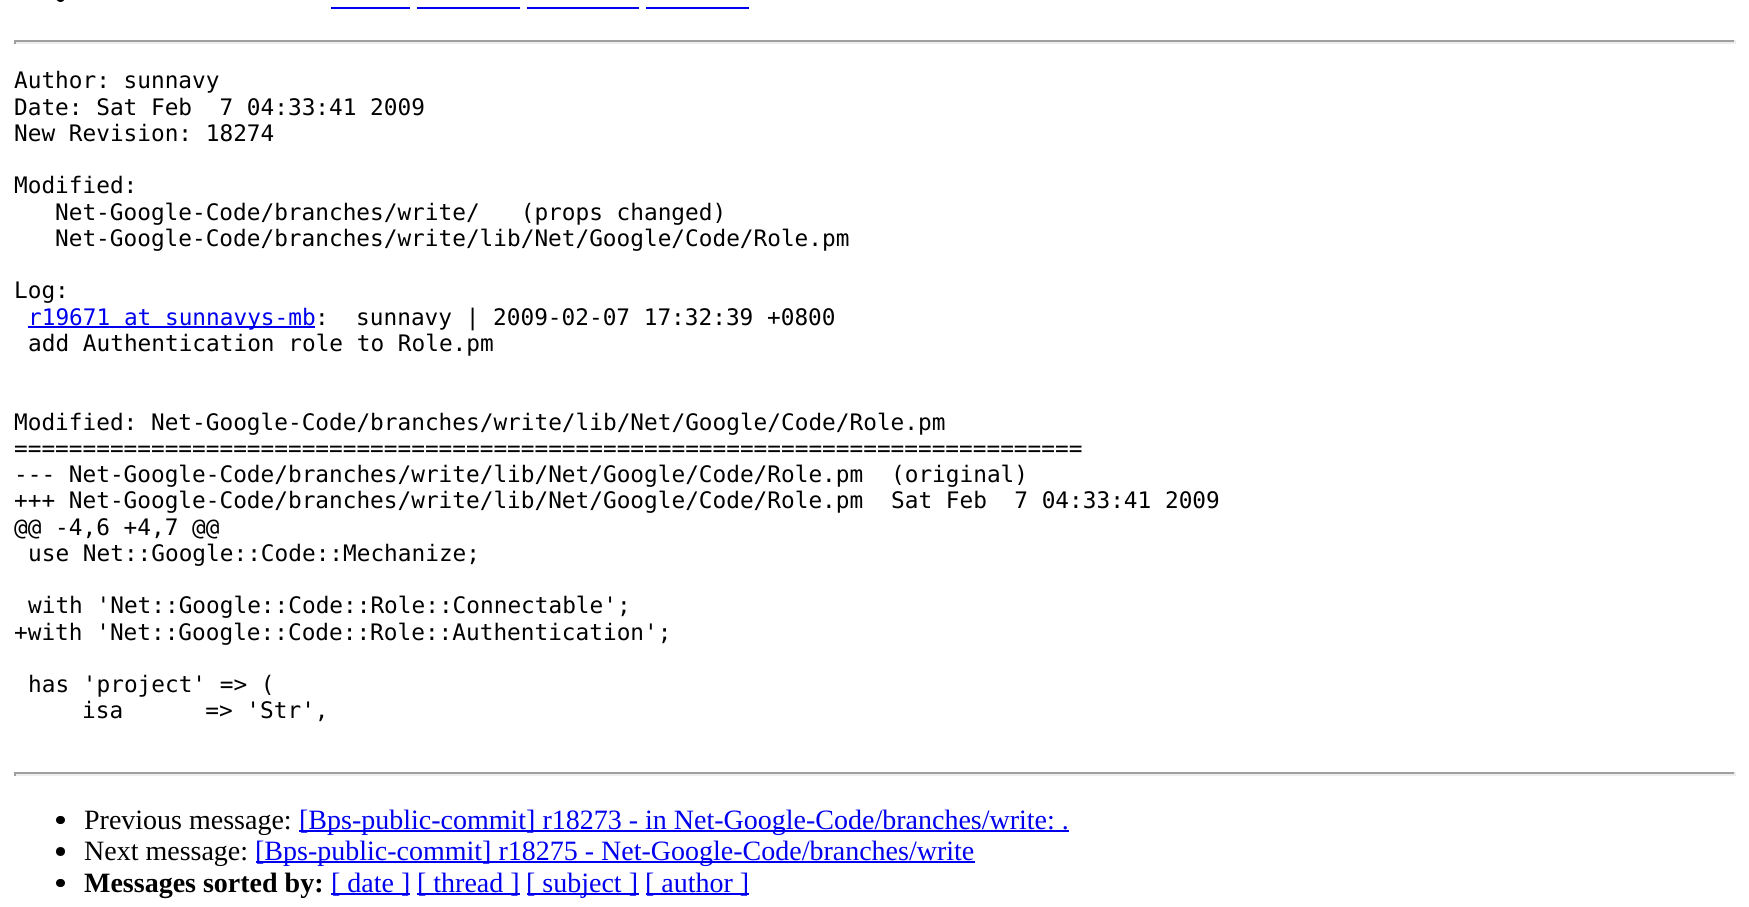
#include <cairo.h>
#include <math.h>
#include <stddef.h>

typedef struct { const char *family; double size; int italic, bold; unsigned color; } style_t;
static cairo_t *ctx;

static void ink(unsigned color) {
    cairo_set_source_rgb(ctx, (color >> 16) / 255.0, (color >> 8 & 255) / 255.0, (color & 255) / 255.0);
}

static void write(double x, double y, const char *s, const style_t *st) {
    cairo_select_font_face(ctx, st->family, st->italic ? CAIRO_FONT_SLANT_ITALIC : CAIRO_FONT_SLANT_NORMAL,
        st->bold ? CAIRO_FONT_WEIGHT_BOLD : CAIRO_FONT_WEIGHT_NORMAL);
    cairo_set_font_size(ctx, st->size);
    ink(st->color);
    cairo_move_to(ctx, x, y);
    cairo_show_text(ctx, s);
}

static void block(double x, double y, double w, double h, unsigned color) {
    ink(color);
    cairo_rectangle(ctx, x, y, w, h);
    cairo_fill(ctx);
}

static void round_path(double x, double y, double w, double h, double r) {
    cairo_new_sub_path(ctx);
    cairo_arc(ctx, x + w - r, y + h - r, r, 0, M_PI / 2);
    cairo_arc(ctx, x + r, y + h - r, r, M_PI / 2, M_PI);
    cairo_arc(ctx, x + r, y + r, r, M_PI, 1.5 * M_PI);
    cairo_arc(ctx, x + w - r, y + r, r, 1.5 * M_PI, 2 * M_PI);
    cairo_close_path(ctx);
}

static const style_t s1 = {"DejaVu Sans Mono", 22.75, 0, 0, 0x000000};
static const style_t s2 = {"DejaVu Sans Mono", 22.75, 0, 0, 0x0000ee};
static const style_t s3 = {"Liberation Serif", 28, 0, 0, 0x000000};
static const style_t s4 = {"Liberation Serif", 28, 0, 0, 0x0000ee};
static const style_t s5 = {"Liberation Serif", 28, 0, 1, 0x000000};

int main(void) {
    cairo_surface_t *surface = cairo_image_surface_create(CAIRO_FORMAT_RGB24, 1749, 907);
    ctx = cairo_create(surface);
    cairo_font_options_t *options = cairo_font_options_create();
    cairo_font_options_set_hint_metrics(options, CAIRO_HINT_METRICS_OFF);
    cairo_font_options_set_hint_style(options, CAIRO_HINT_STYLE_NONE);
    cairo_set_font_options(ctx, options);
    cairo_set_miter_limit(ctx, 4);
    ink(0xffffff);
    cairo_paint(ctx);
    ink(0x000000);
    round_path(56, -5, 9, 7, 4.5);
    cairo_fill(ctx);
    block(331, 7, 79, 2, 0x0000ee);
    block(417, 7, 103, 2, 0x0000ee);
    block(527, 7, 112, 2, 0x0000ee);
    block(646, 7, 103, 2, 0x0000ee);
    block(14, 40, 1722, 2, 0x9f9f9f);
    block(1734, 40, 2, 4, 0xeeeeee);
    block(14, 42, 1722, 2, 0xeeeeee);
    block(14, 40, 2, 4, 0x9f9f9f);
    write(14, 88, "Author: sunnavy", &s1);
    write(14, 115, "Date: Sat Feb  7 04:33:41 2009", &s1);
    write(14, 141, "New Revision: 18274", &s1);
    write(14, 193, "Modified:", &s1);
    write(55, 220, "Net-Google-Code/branches/write/   (props changed)", &s1);
    write(55, 246, "Net-Google-Code/branches/write/lib/Net/Google/Code/Role.pm", &s1);
    write(14, 298, "Log:", &s1);
    block(28, 326, 287, 2, 0x0000ee);
    write(28, 325, "r19671 at sunnavys-mb", &s2);
    write(315, 325, ":  sunnavy | 2009-02-07 17:32:39 +0800", &s1);
    write(28, 351, "add Authentication role to Role.pm", &s1);
    write(14, 430, "Modified: Net-Google-Code/branches/write/lib/Net/Google/Code/Role.pm", &s1);
    write(14, 456, "==============================================================================", &s1);
    write(14, 482, "--- Net-Google-Code/branches/write/lib/Net/Google/Code/Role.pm", &s1);
    write(891, 482, "(original)", &s1);
    write(14, 508, "+++ Net-Google-Code/branches/write/lib/Net/Google/Code/Role.pm", &s1);
    write(891, 508, "Sat Feb  7 04:33:41 2009", &s1);
    write(14, 535, "@@ -4,6 +4,7 @@", &s1);
    write(28, 561, "use Net::Google::Code::Mechanize;", &s1);
    write(28, 613, "with 'Net::Google::Code::Role::Connectable';", &s1);
    write(14, 640, "+with 'Net::Google::Code::Role::Authentication';", &s1);
    write(28, 692, "has 'project' => (", &s1);
    write(82, 718, "isa      => 'Str',", &s1);
    block(14, 772, 1722, 2, 0x9f9f9f);
    block(1734, 772, 2, 4, 0xeeeeee);
    block(14, 774, 1722, 2, 0xeeeeee);
    block(14, 772, 2, 4, 0x9f9f9f);
    ink(0x000000);
    round_path(56, 816, 9, 8, 4);
    cairo_fill(ctx);
    write(84, 829, "Previous message:", &s3);
    block(299, 830, 770, 2, 0x0000ee);
    write(299, 829, "[Bps-public-commit] r18273 - in Net-Google-Code/branches/write: .", &s4);
    ink(0x000000);
    cairo_new_path(ctx);
    cairo_arc(ctx, 60.5, 851.5, 4.5, 0, 2 * M_PI);
    cairo_fill(ctx);
    write(84, 860, "Next message:", &s3);
    block(256, 861, 719, 2, 0x0000ee);
    write(255, 860, "[Bps-public-commit] r18275 - Net-Google-Code/branches/write", &s4);
    ink(0x000000);
    round_path(56, 879, 9, 8, 4);
    cairo_fill(ctx);
    write(84, 892, "Messages sorted by:", &s5);
    block(331, 893, 79, 2, 0x0000ee);
    write(331, 892, "[ date ]", &s4);
    block(417, 893, 103, 2, 0x0000ee);
    write(417, 892, "[ thread ]", &s4);
    block(527, 893, 112, 2, 0x0000ee);
    write(526, 892, "[ subject ]", &s4);
    block(646, 893, 103, 2, 0x0000ee);
    write(645, 892, "[ author ]", &s4);
    cairo_surface_write_to_png(surface, "screenshot.png");
    cairo_font_options_destroy(options);
    cairo_destroy(ctx);
    cairo_surface_destroy(surface);
    return 0;
}
